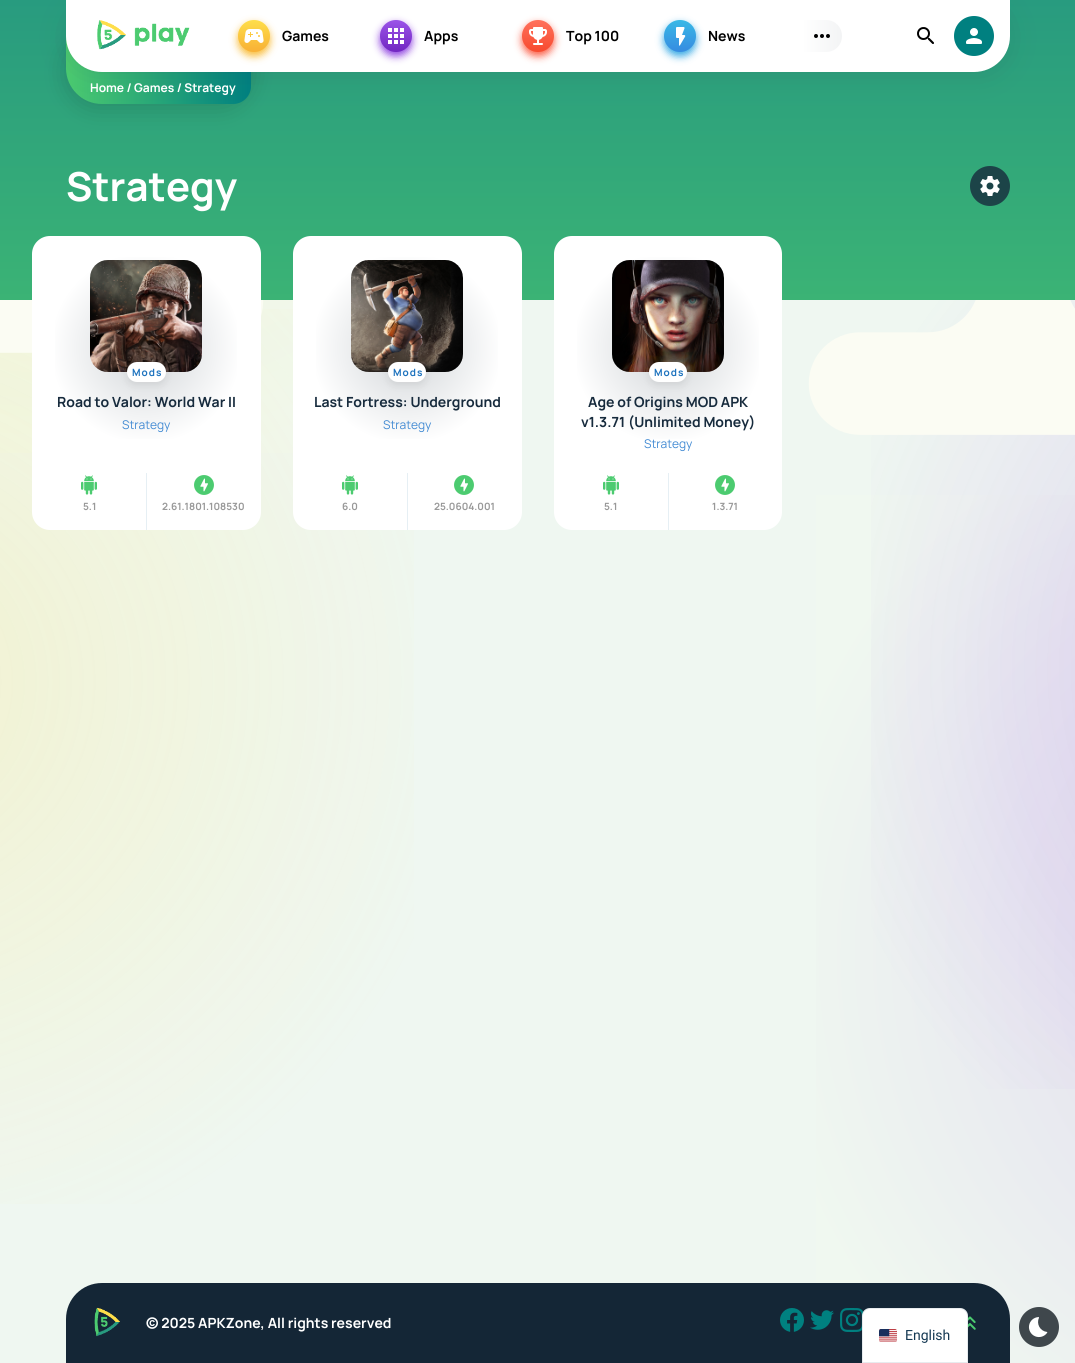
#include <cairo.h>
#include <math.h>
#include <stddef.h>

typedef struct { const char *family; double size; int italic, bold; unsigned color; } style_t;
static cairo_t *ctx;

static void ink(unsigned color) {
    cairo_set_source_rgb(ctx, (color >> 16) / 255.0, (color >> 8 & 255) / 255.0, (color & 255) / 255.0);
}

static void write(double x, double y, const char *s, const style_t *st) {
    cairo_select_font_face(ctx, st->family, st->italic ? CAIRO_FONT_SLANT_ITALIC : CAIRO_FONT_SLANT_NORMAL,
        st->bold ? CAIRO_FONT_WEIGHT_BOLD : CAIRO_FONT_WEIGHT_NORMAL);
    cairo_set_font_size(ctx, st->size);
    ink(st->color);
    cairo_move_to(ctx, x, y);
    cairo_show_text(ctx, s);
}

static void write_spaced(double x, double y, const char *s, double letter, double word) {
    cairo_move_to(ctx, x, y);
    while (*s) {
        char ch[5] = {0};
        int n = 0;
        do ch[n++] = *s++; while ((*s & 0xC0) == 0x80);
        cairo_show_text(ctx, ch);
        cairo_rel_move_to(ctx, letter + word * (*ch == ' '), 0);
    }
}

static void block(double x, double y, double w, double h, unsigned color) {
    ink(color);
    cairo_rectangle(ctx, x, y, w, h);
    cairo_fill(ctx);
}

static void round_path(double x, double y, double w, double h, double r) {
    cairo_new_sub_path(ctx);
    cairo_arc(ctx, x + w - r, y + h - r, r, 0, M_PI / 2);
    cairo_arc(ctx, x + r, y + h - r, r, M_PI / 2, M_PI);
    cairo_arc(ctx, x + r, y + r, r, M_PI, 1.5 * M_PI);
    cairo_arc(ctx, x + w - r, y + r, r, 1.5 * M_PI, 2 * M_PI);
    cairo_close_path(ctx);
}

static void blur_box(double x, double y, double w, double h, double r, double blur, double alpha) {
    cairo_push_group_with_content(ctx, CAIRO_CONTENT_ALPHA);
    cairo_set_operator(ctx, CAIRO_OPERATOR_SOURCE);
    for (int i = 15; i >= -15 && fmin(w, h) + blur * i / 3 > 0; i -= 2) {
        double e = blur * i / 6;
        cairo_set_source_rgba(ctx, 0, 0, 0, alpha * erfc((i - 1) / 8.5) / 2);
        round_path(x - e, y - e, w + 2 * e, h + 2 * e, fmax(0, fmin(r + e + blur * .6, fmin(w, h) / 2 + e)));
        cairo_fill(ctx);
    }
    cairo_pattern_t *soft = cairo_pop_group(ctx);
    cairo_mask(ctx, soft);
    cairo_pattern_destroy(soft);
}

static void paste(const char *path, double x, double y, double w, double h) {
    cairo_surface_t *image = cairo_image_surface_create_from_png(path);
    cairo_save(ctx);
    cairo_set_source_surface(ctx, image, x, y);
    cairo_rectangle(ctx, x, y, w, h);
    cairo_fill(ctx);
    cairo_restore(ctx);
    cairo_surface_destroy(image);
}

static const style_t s1 = {"Manrope", 14, 0, 1, 0x000000};
static const style_t s2 = {"Manrope", 12, 0, 1, 0xffffff};
static const style_t s3 = {"Manrope", 40, 0, 1, 0xffffff};
static const style_t s4 = {"Manrope", 14, 0, 1, 0x172b3d};
static const style_t s5 = {"Manrope", 12, 0, 0, 0x438bd3};
static const style_t s6 = {"Manrope", 10, 0, 1, 0x999999};
static const style_t s7 = {"Manrope", 14, 0, 1, 0xffffff};
static const style_t s8 = {"Roboto", 14, 0, 0, 0x143852};

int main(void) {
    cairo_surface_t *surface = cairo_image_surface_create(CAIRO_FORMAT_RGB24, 1075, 1363);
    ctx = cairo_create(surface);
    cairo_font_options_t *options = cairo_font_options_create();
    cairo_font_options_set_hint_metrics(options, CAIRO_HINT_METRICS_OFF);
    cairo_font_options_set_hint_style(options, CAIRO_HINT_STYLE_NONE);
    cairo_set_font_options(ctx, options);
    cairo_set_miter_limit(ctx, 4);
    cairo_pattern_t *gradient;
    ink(0xeff7f1);
    cairo_paint(ctx);
    gradient = cairo_pattern_create_linear(538, 300, 538, 0);
    cairo_pattern_add_color_stop_rgba(gradient, 0, 0.231, 0.702, 0.459, 1);
    cairo_pattern_add_color_stop_rgba(gradient, 1, 0.157, 0.608, 0.498, 1);
    cairo_set_source(ctx, gradient);
    cairo_pattern_destroy(gradient);
    cairo_rectangle(ctx, 0, 0, 1075, 300);
    cairo_fill(ctx);
    ink(0x000000);
    blur_box(66, 36, 185, 72, 36, 12, 0.15);
    gradient = cairo_pattern_create_linear(66, 68, 251, 68);
    cairo_pattern_add_color_stop_rgba(gradient, 0, 0.298, 0.796, 0.439, 1);
    cairo_pattern_add_color_stop_rgba(gradient, 1, 0, 0.502, 0.502, 1);
    cairo_set_source(ctx, gradient);
    cairo_pattern_destroy(gradient);
    cairo_new_path(ctx);
    cairo_move_to(ctx, 66, 32);
    cairo_line_to(ctx, 251, 32);
    cairo_line_to(ctx, 251, 86);
    cairo_curve_to(ctx, 251, 96, 243, 104, 233, 104);
    cairo_line_to(ctx, 102, 104);
    cairo_curve_to(ctx, 82, 104, 66, 88, 66, 68);
    cairo_close_path(ctx);
    cairo_fill(ctx);
    ink(0x172b3d);
    blur_box(74, 10, 928, 56, 28, 16, 0.2);
    ink(0xffffff);
    cairo_new_path(ctx);
    cairo_move_to(ctx, 66, 0);
    cairo_line_to(ctx, 1010, 0);
    cairo_line_to(ctx, 1010, 36);
    cairo_curve_to(ctx, 1010, 56, 994, 72, 974, 72);
    cairo_line_to(ctx, 102, 72);
    cairo_curve_to(ctx, 82, 72, 66, 56, 66, 36);
    cairo_close_path(ctx);
    cairo_fill(ctx);
    paste("pic1.png", 97, 20, 93, 30);
    ink(0xf9bd3b);
    blur_box(238, 24, 32, 32, 16, 4, 1);
    gradient = cairo_pattern_create_linear(254, 20, 254, 52);
    cairo_pattern_add_color_stop_rgba(gradient, 0, 0.996, 0.871, 0.29, 1);
    cairo_pattern_add_color_stop_rgba(gradient, 1, 0.973, 0.69, 0.208, 1);
    cairo_set_source(ctx, gradient);
    cairo_pattern_destroy(gradient);
    cairo_arc(ctx, 254, 36, 16, 0, 2 * M_PI);
    cairo_fill(ctx);
    paste("pic2.png", 244, 29, 20, 14);
    write(282, 41, "Games", &s1);
    ink(0x9248e1);
    blur_box(380, 24, 32, 32, 16, 4, 1);
    gradient = cairo_pattern_create_linear(396, 20, 396, 52);
    cairo_pattern_add_color_stop_rgba(gradient, 0, 0.608, 0.329, 0.91, 1);
    cairo_pattern_add_color_stop_rgba(gradient, 1, 0.443, 0.149, 0.757, 1);
    cairo_set_source(ctx, gradient);
    cairo_pattern_destroy(gradient);
    cairo_arc(ctx, 396, 36, 16, 0, 2 * M_PI);
    cairo_fill(ctx);
    paste("pic3.png", 388, 28, 16, 16);
    write(424, 41, "Apps", &s1);
    ink(0xfb614a);
    blur_box(522, 24, 32, 32, 16, 4, 1);
    gradient = cairo_pattern_create_linear(538, 20, 538, 52);
    cairo_pattern_add_color_stop_rgba(gradient, 0, 1, 0.443, 0.361, 1);
    cairo_pattern_add_color_stop_rgba(gradient, 1, 0.969, 0.29, 0.184, 1);
    cairo_set_source(ctx, gradient);
    cairo_pattern_destroy(gradient);
    cairo_arc(ctx, 538, 36, 16, 0, 2 * M_PI);
    cairo_fill(ctx);
    paste("pic4.png", 529, 27, 18, 18);
    write(566, 41, "Top 100", &s1);
    ink(0x37a9e4);
    blur_box(664, 24, 32, 32, 16, 4, 1);
    gradient = cairo_pattern_create_linear(680, 20, 680, 52);
    cairo_pattern_add_color_stop_rgba(gradient, 0, 0.22, 0.725, 0.902, 1);
    cairo_pattern_add_color_stop_rgba(gradient, 1, 0.212, 0.545, 0.882, 1);
    cairo_set_source(ctx, gradient);
    cairo_pattern_destroy(gradient);
    cairo_arc(ctx, 680, 36, 16, 0, 2 * M_PI);
    cairo_fill(ctx);
    paste("pic5.png", 676, 27, 10, 19);
    write(708, 41, "News", &s1);
    gradient = cairo_pattern_create_linear(802, 36, 842, 36);
    cairo_pattern_add_color_stop_rgba(gradient, 0, 1, 1, 1, 1);
    cairo_pattern_add_color_stop_rgba(gradient, 1, 0.953, 0.957, 0.961, 1);
    cairo_set_source(ctx, gradient);
    cairo_pattern_destroy(gradient);
    cairo_new_path(ctx);
    cairo_move_to(ctx, 802, 20);
    cairo_line_to(ctx, 826, 20);
    cairo_curve_to(ctx, 835, 20, 842, 27, 842, 36);
    cairo_curve_to(ctx, 842, 45, 835, 52, 826, 52);
    cairo_line_to(ctx, 802, 52);
    cairo_close_path(ctx);
    cairo_fill(ctx);
    ink(0x000000);
    cairo_arc(ctx, 816, 36, 2, 0, 2 * M_PI);
    cairo_fill(ctx);
    cairo_arc(ctx, 822, 36, 2, 0, 2 * M_PI);
    cairo_fill(ctx);
    cairo_arc(ctx, 828, 36, 2, 0, 2 * M_PI);
    cairo_fill(ctx);
    paste("pic6.png", 917, 27, 17, 17);
    ink(0x008080);
    cairo_arc(ctx, 974, 36, 20, 0, 2 * M_PI);
    cairo_fill(ctx);
    paste("pic7.png", 966, 28, 16, 16);
    write(90, 92, "Home / Games / Strategy", &s2);
    write(66, 201, "Strategy", &s3);
    cairo_set_source_rgba(ctx, 0.09, 0.169, 0.239, 0.8);
    cairo_new_path(ctx);
    cairo_arc(ctx, 990, 186, 20, 0, 2 * M_PI);
    cairo_fill(ctx);
    paste("pic8.png", 980, 176, 20, 20);
    gradient = cairo_pattern_create_radial(58, -120, 0, 58, -120, 600);
    cairo_pattern_add_color_stop_rgba(gradient, 0, 0.953, 0.953, 0.812, 1);
    cairo_pattern_add_color_stop_rgba(gradient, 1, 0.941, 0.973, 0.941, 1);
    cairo_set_source(ctx, gradient);
    cairo_pattern_destroy(gradient);
    cairo_rectangle(ctx, 0, 300, 447, 153);
    cairo_fill(ctx);
    gradient = cairo_pattern_create_radial(-122, 682, 0, -122, 682, 600);
    cairo_pattern_add_color_stop_rgba(gradient, 0, 0.996, 0.871, 0.29, 0.2);
    cairo_pattern_add_color_stop_rgba(gradient, 1, 0.996, 0.871, 0.29, 0);
    cairo_set_source(ctx, gradient);
    cairo_pattern_destroy(gradient);
    cairo_rectangle(ctx, 0, 309, 414, 895);
    cairo_fill(ctx);
    gradient = cairo_pattern_create_radial(1353, 954, 0, 1353, 954, 600);
    cairo_pattern_add_color_stop_rgba(gradient, 0, 0.875, 0.843, 0.937, 1);
    cairo_pattern_add_color_stop_rgba(gradient, 1, 0.941, 0.973, 0.941, 1);
    cairo_set_source(ctx, gradient);
    cairo_pattern_destroy(gradient);
    cairo_rectangle(ctx, 816, 495, 259, 868);
    cairo_fill(ctx);
    gradient = cairo_pattern_create_radial(1406, 668, 0, 1406, 668, 600);
    cairo_pattern_add_color_stop_rgba(gradient, 0, 0.51, 0.141, 0.89, 0.2);
    cairo_pattern_add_color_stop_rgba(gradient, 1, 0.51, 0.141, 0.89, 0);
    cairo_set_source(ctx, gradient);
    cairo_pattern_destroy(gradient);
    cairo_rectangle(ctx, 871, 300, 204, 789);
    cairo_fill(ctx);
    paste("pic9.png", 0, 300, 1075, 135);
    ink(0xffffff);
    round_path(32, 236, 229, 294, 18);
    cairo_fill(ctx);
    gradient = cairo_pattern_create_radial(146, 348, 0, 146, 348, 96);
    cairo_pattern_add_color_stop_rgba(gradient, 0, 0.82, 0.835, 0.847, 1);
    cairo_pattern_add_color_stop_rgba(gradient, 1, 1, 1, 1, 1);
    cairo_set_source(ctx, gradient);
    cairo_pattern_destroy(gradient);
    cairo_rectangle(ctx, 55, 257, 182, 182);
    cairo_fill(ctx);
    paste("pic10.png", 90, 260, 112, 112);
    ink(0x000000);
    blur_box(127, 366, 39, 20, 10, 4, 0.07);
    ink(0xffffff);
    round_path(127, 362, 39, 20, 10);
    cairo_fill(ctx);
    cairo_set_font_size(ctx, 10);
    ink(0x1e73be);
    write_spaced(132, 376, "Mods", 1, 0);
    write(57, 407, "Road to Valor: World War II", &s4);
    write(122, 429, "Strategy", &s5);
    paste("pic11.png", 81, 475, 16, 20);
    write(83, 510, "5.1", &s6);
    block(146, 473, 1, 57, 0xe6eff4);
    paste("pic12.png", 194, 475, 20, 20);
    write(162, 510, "2.61.1801.108530", &s6);
    ink(0xffffff);
    round_path(293, 236, 229, 294, 18);
    cairo_fill(ctx);
    gradient = cairo_pattern_create_radial(407, 348, 0, 407, 348, 96);
    cairo_pattern_add_color_stop_rgba(gradient, 0, 0.82, 0.835, 0.847, 1);
    cairo_pattern_add_color_stop_rgba(gradient, 1, 1, 1, 1, 1);
    cairo_set_source(ctx, gradient);
    cairo_pattern_destroy(gradient);
    cairo_rectangle(ctx, 316, 257, 182, 182);
    cairo_fill(ctx);
    paste("pic13.png", 351, 260, 112, 112);
    ink(0x000000);
    blur_box(388, 366, 38, 20, 10, 4, 0.07);
    ink(0xffffff);
    round_path(388, 362, 38, 20, 10);
    cairo_fill(ctx);
    ink(0x1e73be);
    write_spaced(393, 376, "Mods", 1, 0);
    write(314, 407, "Last Fortress: Underground", &s4);
    write(383, 429, "Strategy", &s5);
    paste("pic11.png", 342, 475, 16, 20);
    write(342, 510, "6.0", &s6);
    block(407, 473, 1, 57, 0xe6eff4);
    paste("pic12.png", 454, 475, 20, 20);
    write(434, 510, "25.0604.001", &s6);
    ink(0xffffff);
    round_path(554, 236, 228, 294, 18);
    cairo_fill(ctx);
    gradient = cairo_pattern_create_radial(668, 348, 0, 668, 348, 96);
    cairo_pattern_add_color_stop_rgba(gradient, 0, 0.82, 0.835, 0.847, 1);
    cairo_pattern_add_color_stop_rgba(gradient, 1, 1, 1, 1, 1);
    cairo_set_source(ctx, gradient);
    cairo_pattern_destroy(gradient);
    cairo_rectangle(ctx, 577, 257, 182, 182);
    cairo_fill(ctx);
    paste("pic14.png", 612, 260, 112, 112);
    ink(0x000000);
    blur_box(649, 366, 38, 20, 10, 4, 0.07);
    ink(0xffffff);
    round_path(649, 362, 38, 20, 10);
    cairo_fill(ctx);
    ink(0x1e73be);
    write_spaced(654, 376, "Mods", 1, 0);
    write(588, 407, "Age of Origins MOD APK", &s4);
    write(581, 427, "v1.3.71 (Unlimited Money)", &s4);
    write(644, 448, "Strategy", &s5);
    paste("pic11.png", 603, 475, 16, 20);
    write(604, 510, "5.1", &s6);
    block(668, 473, 1, 57, 0xe6eff4);
    paste("pic12.png", 715, 475, 20, 20);
    write(712, 510, "1.3.71", &s6);
    ink(0x142636);
    cairo_new_path(ctx);
    cairo_move_to(ctx, 102, 1283);
    cairo_line_to(ctx, 974, 1283);
    cairo_curve_to(ctx, 994, 1283, 1010, 1299, 1010, 1319);
    cairo_line_to(ctx, 1010, 1363);
    cairo_line_to(ctx, 66, 1363);
    cairo_line_to(ctx, 66, 1319);
    cairo_curve_to(ctx, 66, 1299, 82, 1283, 102, 1283);
    cairo_close_path(ctx);
    cairo_fill(ctx);
    paste("pic15.png", 94, 1307, 26, 30);
    write(146, 1328, "© 2025 APKZone, All rights reserved", &s7);
    paste("pic16.png", 780, 1308, 24, 24);
    paste("pic17.png", 810, 1310, 24, 20);
    paste("pic18.png", 840, 1308, 24, 24);
    paste("pic19.png", 968, 1316, 8, 14);
    ink(0x3f474c);
    cairo_arc(ctx, 1039, 1327, 20, 0, 2 * M_PI);
    cairo_fill(ctx);
    paste("pic20.png", 1028, 1317, 20, 21);
    ink(0xffffff);
    cairo_new_path(ctx);
    cairo_move_to(ctx, 870, 1308);
    cairo_line_to(ctx, 960, 1308);
    cairo_curve_to(ctx, 964.5, 1308, 968, 1311.5, 968, 1316);
    cairo_line_to(ctx, 968, 1363);
    cairo_line_to(ctx, 862, 1363);
    cairo_line_to(ctx, 862, 1316);
    cairo_curve_to(ctx, 862, 1311.5, 865.5, 1308, 870, 1308);
    cairo_close_path(ctx);
    cairo_fill(ctx);
    cairo_new_path(ctx);
    cairo_move_to(ctx, 870, 1308.5);
    cairo_line_to(ctx, 960, 1308.5);
    cairo_curve_to(ctx, 964, 1308.5, 967.5, 1312, 967.5, 1316);
    cairo_line_to(ctx, 967.5, 1362.5);
    cairo_line_to(ctx, 862.5, 1362.5);
    cairo_line_to(ctx, 862.5, 1316);
    cairo_curve_to(ctx, 862.5, 1312, 866, 1308.5, 870, 1308.5);
    cairo_close_path(ctx);
    cairo_set_source_rgba(ctx, 0.078, 0.22, 0.322, 0.1);
    cairo_set_line_width(ctx, 1);
    cairo_stroke(ctx);
    paste("pic21.png", 879, 1329, 18, 13);
    write(905, 1340, "English", &s8);
    cairo_surface_write_to_png(surface, "screenshot.png");
    cairo_font_options_destroy(options);
    cairo_destroy(ctx);
    cairo_surface_destroy(surface);
    return 0;
}
